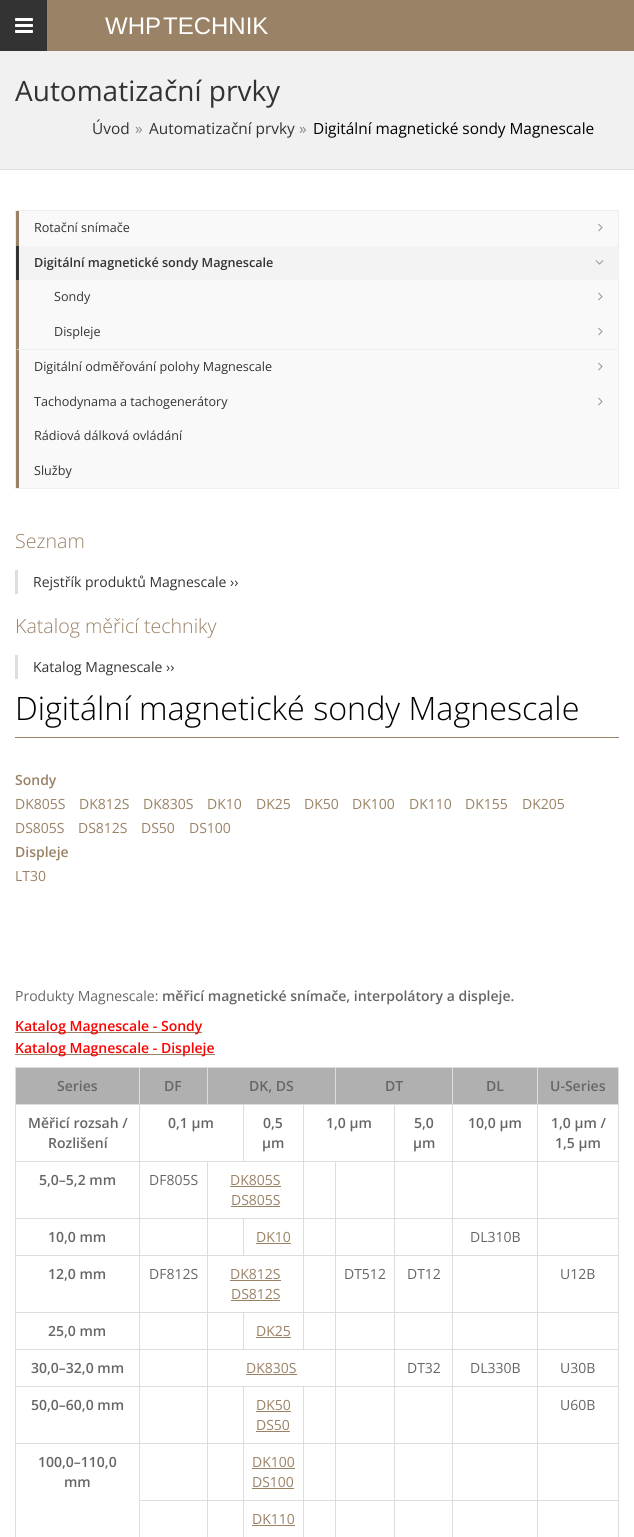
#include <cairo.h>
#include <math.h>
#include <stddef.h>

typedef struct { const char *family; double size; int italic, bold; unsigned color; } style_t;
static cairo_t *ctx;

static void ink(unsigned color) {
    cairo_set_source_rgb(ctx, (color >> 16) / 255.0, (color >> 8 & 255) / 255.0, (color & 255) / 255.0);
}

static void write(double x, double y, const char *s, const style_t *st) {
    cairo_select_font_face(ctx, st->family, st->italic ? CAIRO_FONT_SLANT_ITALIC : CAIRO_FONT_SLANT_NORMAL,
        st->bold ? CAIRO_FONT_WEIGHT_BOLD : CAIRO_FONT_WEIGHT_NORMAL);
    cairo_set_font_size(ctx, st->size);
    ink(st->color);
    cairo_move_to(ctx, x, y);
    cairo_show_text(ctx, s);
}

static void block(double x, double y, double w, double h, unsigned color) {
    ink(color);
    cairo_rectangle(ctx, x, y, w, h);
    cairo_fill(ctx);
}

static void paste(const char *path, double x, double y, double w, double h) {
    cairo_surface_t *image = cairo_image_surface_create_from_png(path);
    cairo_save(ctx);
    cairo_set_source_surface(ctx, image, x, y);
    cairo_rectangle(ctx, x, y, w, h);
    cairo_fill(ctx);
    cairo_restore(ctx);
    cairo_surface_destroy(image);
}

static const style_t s1 = {"Liberation Sans", 24, 0, 0, 0xffffff};
static const style_t s2 = {"Open Sans", 28, 0, 0, 0x333333};
static const style_t s3 = {"Open Sans", 15.4, 0, 0, 0x333333};
static const style_t s4 = {"Open Sans", 15.4, 0, 0, 0x888888};
static const style_t s5 = {"Open Sans", 15.4, 0, 0, 0x000000};
static const style_t s6 = {"Open Sans", 12.6, 0, 0, 0x333333};
static const style_t s7 = {"Open Sans SemiBold", 12.6, 0, 0, 0x333333};
static const style_t s8 = {"Open Sans Light", 19.6, 0, 0, 0x9a8266};
static const style_t s9 = {"Open Sans", 14, 0, 0, 0x333333};
static const style_t s10 = {"Open Sans Light", 32.25, 0, 0, 0x000000};
static const style_t s11 = {"Open Sans SemiBold", 14, 0, 0, 0x9a8266};
static const style_t s12 = {"Open Sans", 14, 0, 0, 0x9a8266};
static const style_t s13 = {"Open Sans", 14, 0, 0, 0x666666};
static const style_t s14 = {"Open Sans SemiBold", 14, 0, 0, 0x666666};
static const style_t s15 = {"Open Sans SemiBold", 14, 0, 0, 0xff0000};

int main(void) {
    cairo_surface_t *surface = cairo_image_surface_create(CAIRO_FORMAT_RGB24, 634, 1537);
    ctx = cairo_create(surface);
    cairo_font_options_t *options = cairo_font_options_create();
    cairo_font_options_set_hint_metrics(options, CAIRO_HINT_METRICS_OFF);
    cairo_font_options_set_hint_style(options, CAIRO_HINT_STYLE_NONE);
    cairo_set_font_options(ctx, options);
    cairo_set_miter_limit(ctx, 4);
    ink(0xffffff);
    cairo_paint(ctx);
    block(47, 0, 587, 51, 0x9a8266);
    block(0, 0, 47, 51, 0x333333);
    paste("pic1.png", 15, 18, 18, 15);
    write(105, 34, "WHP", &s1);
    write(163, 34, "TECHNIK", &s1);
    block(0, 51, 634, 118, 0xf1f1f1);
    block(0, 169, 634, 1, 0xdddddd);
    write(15, 101, "Automatizační prvky", &s2);
    write(92, 134, "Úvod", &s3);
    write(135, 134, "»", &s4);
    write(149, 134, "Automatizační prvky", &s3);
    write(299, 134, "»", &s4);
    write(313, 134, "Digitální magnetické sondy Magnescale", &s5);
    ink(0xf9f9f9);
    cairo_rectangle(ctx, 15.5, 210.5, 603, 278);
    cairo_fill_preserve(ctx);
    ink(0xeeeeee);
    cairo_set_line_width(ctx, 1);
    cairo_stroke(ctx);
    block(16, 211, 3, 35, 0x9a8266);
    write(34, 232, "Rotační snímače", &s6);
    paste("pic2.png", 598, 223, 5, 9);
    block(19, 246, 599, 34, 0xf3f3f3);
    block(16, 246, 3, 34, 0x333333);
    write(34, 267, "Digitální magnetické sondy Magnescale", &s7);
    paste("pic3.png", 595, 260, 9, 5);
    block(16, 280, 3, 35, 0x9a8266);
    write(54, 301, "Sondy", &s6);
    paste("pic2.png", 598, 292, 5, 9);
    ink(0xeeeeee);
    cairo_new_path(ctx);
    cairo_move_to(ctx, 618, 350);
    cairo_line_to(ctx, 16, 350);
    cairo_line_to(ctx, 19, 349);
    cairo_line_to(ctx, 618, 349);
    cairo_close_path(ctx);
    cairo_fill(ctx);
    ink(0x9a8266);
    cairo_new_path(ctx);
    cairo_move_to(ctx, 16, 350);
    cairo_line_to(ctx, 16, 315);
    cairo_line_to(ctx, 19, 315);
    cairo_line_to(ctx, 19, 349);
    cairo_close_path(ctx);
    cairo_fill(ctx);
    write(54, 336, "Displeje", &s6);
    paste("pic2.png", 598, 327, 5, 9);
    block(16, 350, 3, 138, 0x9a8266);
    write(34, 371, "Digitální odměřování polohy Magnescale", &s6);
    paste("pic2.png", 598, 362, 5, 9);
    write(34, 406, "Tachodynama a tachogenerátory", &s6);
    paste("pic2.png", 598, 397, 5, 9);
    write(34, 440, "Rádiová dálková ovládání", &s6);
    write(34, 475, "Služby", &s6);
    write(15, 548, "Seznam", &s8);
    block(15, 570, 3, 24, 0xdddddd);
    write(33, 587, "Rejstřík produktů Magnescale ››", &s9);
    write(15, 633, "Katalog měřicí techniky", &s8);
    block(15, 655, 3, 24, 0xdddddd);
    write(33, 672, "Katalog Magnescale ››", &s9);
    block(15, 737, 604, 1, 0x9a8266);
    write(15, 720, "Digitální magnetické sondy Magnescale", &s10);
    write(15, 785, "Sondy", &s11);
    write(15, 809, "DK805S", &s12);
    write(79, 809, "DK812S", &s12);
    write(143, 809, "DK830S", &s12);
    write(207, 809, "DK10", &s12);
    write(256, 809, "DK25", &s12);
    write(304, 809, "DK50", &s12);
    write(352, 809, "DK100", &s12);
    write(409, 809, "DK110", &s12);
    write(465, 809, "DK155", &s12);
    write(522, 809, "DK205", &s12);
    write(15, 833, "DS805S", &s12);
    write(78, 833, "DS812S", &s12);
    write(141, 833, "DS50", &s12);
    write(189, 833, "DS100", &s12);
    write(15, 857, "Displeje", &s11);
    write(15, 881, "LT30", &s12);
    write(15, 1001, "Produkty Magnescale:", &s13);
    write(162, 1001, "měřicí magnetické snímače, interpolátory a displeje.", &s14);
    block(15, 1032, 187, 1, 0x9a8266);
    write(15, 1031, "Katalog Magnescale - Sondy", &s15);
    block(15, 1054, 200, 1, 0x9a8266);
    write(15, 1053, "Katalog Magnescale - Displeje", &s15);
    block(15, 1067, 604, 1, 0xdddddd);
    block(618, 1067, 1, 470, 0xdddddd);
    block(15, 1067, 1, 470, 0xdddddd);
    block(16, 1068, 123, 36, 0xb0b0b0);
    write(57, 1091, "Series", &s14);
    block(140, 1068, 67, 36, 0xb0b0b0);
    block(537, 1104, 82, 1, 0xdddddd);
    block(537, 1161, 82, 1, 0xdddddd);
    block(537, 1218, 82, 1, 0xdddddd);
    block(537, 1255, 82, 1, 0xdddddd);
    block(537, 1312, 82, 1, 0xdddddd);
    block(537, 1349, 82, 1, 0xdddddd);
    block(537, 1386, 82, 1, 0xdddddd);
    block(537, 1443, 82, 1, 0xdddddd);
    block(537, 1500, 82, 1, 0xdddddd);
    block(537, 1500, 1, 37, 0xdddddd);
    block(452, 1500, 86, 1, 0xdddddd);
    block(537, 1443, 1, 58, 0xdddddd);
    block(452, 1443, 86, 1, 0xdddddd);
    block(537, 1386, 1, 58, 0xdddddd);
    block(452, 1386, 86, 1, 0xdddddd);
    block(537, 1349, 1, 38, 0xdddddd);
    block(452, 1349, 86, 1, 0xdddddd);
    block(537, 1312, 1, 38, 0xdddddd);
    block(452, 1312, 86, 1, 0xdddddd);
    block(537, 1255, 1, 58, 0xdddddd);
    block(452, 1255, 86, 1, 0xdddddd);
    block(537, 1218, 1, 38, 0xdddddd);
    block(452, 1218, 86, 1, 0xdddddd);
    block(537, 1161, 1, 58, 0xdddddd);
    block(452, 1161, 86, 1, 0xdddddd);
    block(537, 1104, 1, 58, 0xdddddd);
    block(452, 1104, 86, 1, 0xdddddd);
    block(452, 1500, 1, 37, 0xdddddd);
    block(394, 1500, 59, 1, 0xdddddd);
    block(452, 1443, 1, 58, 0xdddddd);
    block(394, 1443, 59, 1, 0xdddddd);
    block(452, 1386, 1, 58, 0xdddddd);
    block(394, 1386, 59, 1, 0xdddddd);
    block(452, 1349, 1, 38, 0xdddddd);
    block(394, 1349, 59, 1, 0xdddddd);
    block(452, 1312, 1, 38, 0xdddddd);
    block(394, 1312, 59, 1, 0xdddddd);
    block(452, 1255, 1, 58, 0xdddddd);
    block(394, 1255, 59, 1, 0xdddddd);
    block(452, 1218, 1, 38, 0xdddddd);
    block(394, 1218, 59, 1, 0xdddddd);
    block(452, 1161, 1, 58, 0xdddddd);
    block(394, 1161, 59, 1, 0xdddddd);
    block(452, 1104, 1, 58, 0xdddddd);
    block(394, 1104, 59, 1, 0xdddddd);
    block(394, 1500, 1, 37, 0xdddddd);
    block(335, 1500, 60, 1, 0xdddddd);
    block(394, 1443, 1, 58, 0xdddddd);
    block(335, 1443, 60, 1, 0xdddddd);
    block(394, 1386, 1, 58, 0xdddddd);
    block(335, 1386, 60, 1, 0xdddddd);
    block(394, 1349, 1, 38, 0xdddddd);
    block(335, 1349, 60, 1, 0xdddddd);
    block(394, 1312, 1, 38, 0xdddddd);
    block(335, 1312, 60, 1, 0xdddddd);
    block(394, 1255, 1, 58, 0xdddddd);
    block(335, 1255, 60, 1, 0xdddddd);
    block(394, 1218, 1, 38, 0xdddddd);
    block(335, 1218, 60, 1, 0xdddddd);
    block(394, 1161, 1, 58, 0xdddddd);
    block(335, 1161, 60, 1, 0xdddddd);
    block(394, 1104, 1, 58, 0xdddddd);
    block(303, 1104, 92, 1, 0xdddddd);
    block(335, 1500, 1, 37, 0xdddddd);
    block(303, 1500, 33, 1, 0xdddddd);
    block(335, 1443, 1, 58, 0xdddddd);
    block(303, 1443, 33, 1, 0xdddddd);
    block(335, 1386, 1, 58, 0xdddddd);
    block(303, 1386, 33, 1, 0xdddddd);
    block(335, 1349, 1, 38, 0xdddddd);
    block(207, 1349, 129, 1, 0xdddddd);
    block(335, 1312, 1, 38, 0xdddddd);
    block(303, 1312, 33, 1, 0xdddddd);
    block(335, 1255, 1, 58, 0xdddddd);
    block(303, 1255, 33, 1, 0xdddddd);
    block(335, 1218, 1, 38, 0xdddddd);
    block(303, 1218, 33, 1, 0xdddddd);
    block(335, 1161, 1, 58, 0xdddddd);
    block(303, 1161, 33, 1, 0xdddddd);
    block(303, 1312, 1, 38, 0xdddddd);
    block(243, 1312, 61, 1, 0xdddddd);
    block(303, 1255, 1, 58, 0xdddddd);
    block(207, 1255, 97, 1, 0xdddddd);
    block(303, 1218, 1, 38, 0xdddddd);
    block(243, 1218, 61, 1, 0xdddddd);
    block(303, 1161, 1, 58, 0xdddddd);
    block(207, 1161, 97, 1, 0xdddddd);
    block(303, 1104, 1, 58, 0xdddddd);
    block(243, 1104, 61, 1, 0xdddddd);
    block(243, 1104, 1, 58, 0xdddddd);
    block(139, 1104, 105, 1, 0xdddddd);
    block(243, 1218, 1, 38, 0xdddddd);
    block(207, 1218, 37, 1, 0xdddddd);
    block(243, 1312, 1, 38, 0xdddddd);
    block(207, 1312, 37, 1, 0xdddddd);
    block(303, 1500, 1, 37, 0xdddddd);
    block(243, 1500, 61, 1, 0xdddddd);
    block(303, 1443, 1, 58, 0xdddddd);
    block(243, 1443, 61, 1, 0xdddddd);
    block(303, 1386, 1, 58, 0xdddddd);
    block(243, 1386, 61, 1, 0xdddddd);
    block(243, 1500, 1, 37, 0xdddddd);
    block(207, 1500, 37, 1, 0xdddddd);
    block(243, 1443, 1, 58, 0xdddddd);
    block(207, 1443, 37, 1, 0xdddddd);
    block(243, 1386, 1, 58, 0xdddddd);
    block(207, 1386, 37, 1, 0xdddddd);
    block(207, 1500, 1, 37, 0xdddddd);
    block(139, 1500, 69, 1, 0xdddddd);
    block(207, 1443, 1, 58, 0xdddddd);
    block(139, 1443, 69, 1, 0xdddddd);
    block(207, 1386, 1, 58, 0xdddddd);
    block(139, 1386, 69, 1, 0xdddddd);
    block(207, 1349, 1, 38, 0xdddddd);
    block(139, 1349, 69, 1, 0xdddddd);
    block(207, 1312, 1, 38, 0xdddddd);
    block(139, 1312, 69, 1, 0xdddddd);
    block(207, 1255, 1, 58, 0xdddddd);
    block(139, 1255, 69, 1, 0xdddddd);
    block(207, 1218, 1, 38, 0xdddddd);
    block(139, 1218, 69, 1, 0xdddddd);
    block(207, 1161, 1, 58, 0xdddddd);
    block(139, 1161, 69, 1, 0xdddddd);
    block(139, 1500, 1, 37, 0xdddddd);
    block(139, 1443, 1, 58, 0xdddddd);
    block(15, 1443, 125, 1, 0xdddddd);
    block(139, 1386, 1, 58, 0xdddddd);
    block(15, 1386, 125, 1, 0xdddddd);
    block(139, 1349, 1, 38, 0xdddddd);
    block(15, 1349, 125, 1, 0xdddddd);
    block(139, 1312, 1, 38, 0xdddddd);
    block(15, 1312, 125, 1, 0xdddddd);
    block(139, 1255, 1, 58, 0xdddddd);
    block(15, 1255, 125, 1, 0xdddddd);
    block(139, 1218, 1, 38, 0xdddddd);
    block(15, 1218, 125, 1, 0xdddddd);
    block(139, 1161, 1, 58, 0xdddddd);
    block(15, 1161, 125, 1, 0xdddddd);
    block(139, 1104, 1, 58, 0xdddddd);
    block(15, 1104, 125, 1, 0xdddddd);
    block(139, 1067, 1, 38, 0xdddddd);
    write(164, 1091, "DF", &s14);
    block(208, 1068, 127, 36, 0xb0b0b0);
    block(207, 1067, 1, 38, 0xdddddd);
    write(249, 1091, "DK, DS", &s14);
    block(336, 1068, 116, 36, 0xb0b0b0);
    block(335, 1067, 1, 38, 0xdddddd);
    write(385, 1091, "DT", &s14);
    block(453, 1068, 84, 36, 0xb0b0b0);
    block(452, 1067, 1, 38, 0xdddddd);
    write(486, 1091, "DL", &s14);
    block(538, 1068, 80, 36, 0xb0b0b0);
    block(537, 1067, 1, 38, 0xdddddd);
    write(550, 1091, "U-Series", &s14);
    write(28, 1128, "Měřicí rozsah /", &s14);
    write(48, 1148, "Rozlišení", &s14);
    write(168, 1128, "0,1 µm", &s14);
    write(263, 1128, "0,5", &s14);
    write(262, 1148, "µm", &s14);
    write(326, 1128, "1,0 µm", &s14);
    write(414, 1128, "5,0", &s14);
    write(413, 1148, "µm", &s14);
    write(468, 1128, "10,0 µm", &s14);
    write(551, 1128, "1,0 µm /", &s14);
    write(555, 1148, "1,5 µm", &s14);
    write(39, 1185, "5,0–5,2 mm", &s14);
    write(149, 1185, "DF805S", &s13);
    write(230, 1185, "DK805S", &s12);
    block(230, 1186, 51, 1, 0x9a8266);
    write(231, 1205, "DS805S", &s12);
    block(231, 1206, 49, 1, 0x9a8266);
    write(48, 1242, "10,0 mm", &s14);
    write(256, 1242, "DK10", &s12);
    block(256, 1243, 35, 1, 0x9a8266);
    write(470, 1242, "DL310B", &s13);
    write(48, 1279, "12,0 mm", &s14);
    write(149, 1279, "DF812S", &s13);
    write(230, 1279, "DK812S", &s12);
    block(230, 1280, 51, 1, 0x9a8266);
    write(231, 1299, "DS812S", &s12);
    block(231, 1300, 49, 1, 0x9a8266);
    write(344, 1279, "DT512", &s13);
    write(407, 1279, "DT12", &s13);
    write(560, 1279, "U12B", &s13);
    write(48, 1336, "25,0 mm", &s14);
    write(256, 1336, "DK25", &s12);
    block(256, 1337, 35, 1, 0x9a8266);
    write(31, 1373, "30,0–32,0 mm", &s14);
    write(246, 1373, "DK830S", &s12);
    block(246, 1374, 51, 1, 0x9a8266);
    write(407, 1373, "DT32", &s13);
    write(470, 1373, "DL330B", &s13);
    write(560, 1373, "U30B", &s13);
    write(31, 1410, "50,0–60,0 mm", &s14);
    write(256, 1410, "DK50", &s12);
    block(256, 1411, 35, 1, 0x9a8266);
    write(256, 1430, "DS50", &s12);
    block(256, 1431, 34, 1, 0x9a8266);
    write(560, 1410, "U60B", &s13);
    write(38, 1467, "100,0–110,0", &s14);
    write(64, 1487, "mm", &s14);
    write(252, 1467, "DK100", &s12);
    block(252, 1468, 43, 1, 0x9a8266);
    write(252, 1487, "DS100", &s12);
    block(252, 1488, 42, 1, 0x9a8266);
    write(252, 1524, "DK110", &s12);
    block(252, 1525, 43, 1, 0x9a8266);
    cairo_surface_write_to_png(surface, "screenshot.png");
    cairo_font_options_destroy(options);
    cairo_destroy(ctx);
    cairo_surface_destroy(surface);
    return 0;
}
